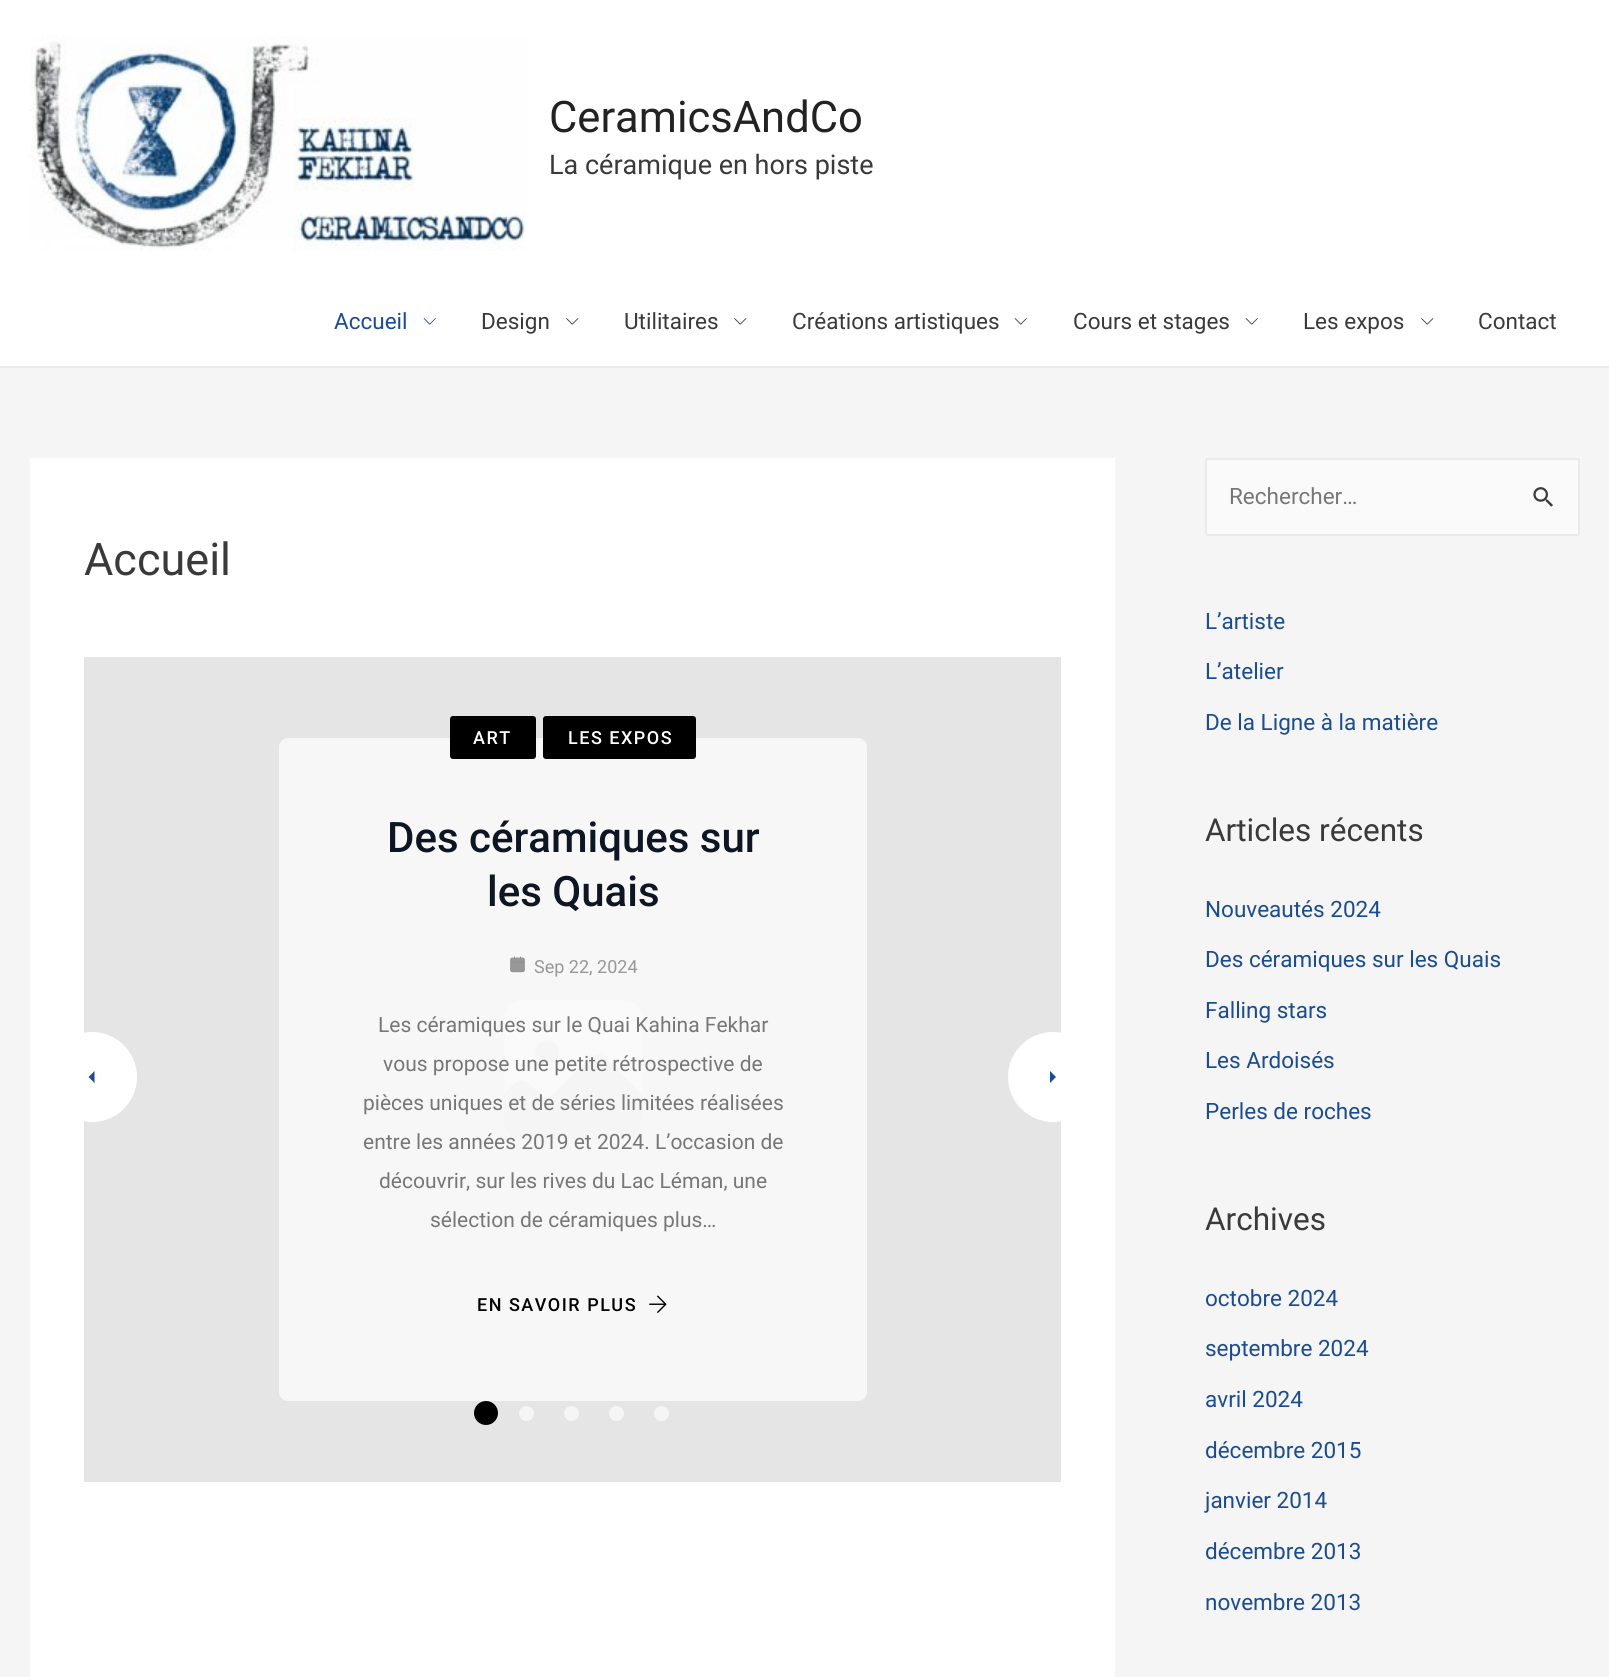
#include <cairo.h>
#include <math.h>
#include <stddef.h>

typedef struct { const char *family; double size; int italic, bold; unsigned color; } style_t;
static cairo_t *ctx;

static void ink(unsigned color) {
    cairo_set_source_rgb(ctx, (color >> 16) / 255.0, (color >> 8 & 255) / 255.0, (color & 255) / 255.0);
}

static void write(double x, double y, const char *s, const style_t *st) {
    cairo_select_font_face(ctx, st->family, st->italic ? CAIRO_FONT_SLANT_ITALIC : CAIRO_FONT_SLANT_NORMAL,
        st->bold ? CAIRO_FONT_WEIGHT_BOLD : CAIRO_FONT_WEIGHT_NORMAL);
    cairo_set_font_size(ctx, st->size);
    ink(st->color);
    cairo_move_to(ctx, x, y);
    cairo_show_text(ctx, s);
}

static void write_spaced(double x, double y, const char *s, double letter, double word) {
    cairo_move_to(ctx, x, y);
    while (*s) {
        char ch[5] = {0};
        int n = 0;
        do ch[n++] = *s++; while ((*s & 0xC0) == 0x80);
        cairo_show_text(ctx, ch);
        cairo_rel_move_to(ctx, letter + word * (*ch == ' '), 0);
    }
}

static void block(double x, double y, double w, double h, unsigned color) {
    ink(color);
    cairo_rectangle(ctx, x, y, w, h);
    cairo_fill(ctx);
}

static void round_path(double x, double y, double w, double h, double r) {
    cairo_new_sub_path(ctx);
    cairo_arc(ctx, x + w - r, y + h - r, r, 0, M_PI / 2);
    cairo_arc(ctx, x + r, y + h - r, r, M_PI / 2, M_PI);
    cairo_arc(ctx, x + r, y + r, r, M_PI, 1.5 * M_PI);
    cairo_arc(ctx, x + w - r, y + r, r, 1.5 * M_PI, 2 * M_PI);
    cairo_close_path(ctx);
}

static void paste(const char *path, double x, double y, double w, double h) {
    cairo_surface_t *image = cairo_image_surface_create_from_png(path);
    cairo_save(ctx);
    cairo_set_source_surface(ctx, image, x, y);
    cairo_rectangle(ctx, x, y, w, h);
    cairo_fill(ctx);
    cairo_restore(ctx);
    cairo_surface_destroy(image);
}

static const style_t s1 = {"Roboto", 43.5, 0, 0, 0x222222};
static const style_t s2 = {"Roboto", 27, 0, 0, 0x3a3a3a};
static const style_t s3 = {"Roboto", 22.5, 0, 0, 0x1b4c8f};
static const style_t s4 = {"Roboto", 22.5, 0, 0, 0x3a3a3a};
static const style_t s5 = {"Roboto", 45, 0, 0, 0x3a3a3a};
static const style_t s6 = {"Roboto Medium", 42, 0, 0, 0x0e1523};
static const style_t s7 = {"Roboto", 18, 0, 0, 0x989898};
static const style_t s8 = {"Roboto", 21, 0, 0, 0x777777};
static const style_t s9 = {"Roboto", 22.5, 0, 0, 0x777777};
static const style_t s10 = {"Roboto", 31.5, 0, 0, 0x3a3a3a};

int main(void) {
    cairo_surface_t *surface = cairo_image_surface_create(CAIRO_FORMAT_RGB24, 1609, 1677);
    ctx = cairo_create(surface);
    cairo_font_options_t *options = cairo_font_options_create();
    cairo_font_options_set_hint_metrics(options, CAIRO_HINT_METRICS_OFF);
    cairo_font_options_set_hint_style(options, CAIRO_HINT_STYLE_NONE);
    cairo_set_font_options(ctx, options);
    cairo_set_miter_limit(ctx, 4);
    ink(0xf5f5f5);
    cairo_paint(ctx);
    block(0, 0, 1609, 366, 0xffffff);
    block(0, 366, 1609, 2, 0xeaeaea);
    paste("pic1.png", 30, 35, 497, 216);
    write(549, 132, "CeramicsAndCo", &s1);
    write(549, 174, "La céramique en hors piste", &s2);
    write(334, 329, "Accueil", &s3);
    paste("pic2.png", 423, 318, 13, 7);
    write(481, 329, "Design", &s4);
    paste("pic3.png", 566, 318, 13, 7);
    write(624, 329, "Utilitaires", &s4);
    paste("pic3.png", 734, 318, 13, 7);
    write(792, 329, "Créations artistiques", &s4);
    paste("pic4.png", 1014, 318, 13, 7);
    write(1073, 329, "Cours et stages", &s4);
    paste("pic4.png", 1245, 318, 13, 7);
    write(1303, 329, "Les expos", &s4);
    paste("pic3.png", 1421, 318, 13, 7);
    write(1478, 329, "Contact", &s4);
    block(30, 458, 1085, 1219, 0xffffff);
    write(84, 575, "Accueil", &s5);
    paste("pic5.png", 84, 657, 977, 825);
    ink(0xffffff);
    cairo_arc(ctx, 92, 1077, 45, 0, 2 * M_PI);
    cairo_fill(ctx);
    ink(0x1b4c8f);
    cairo_new_path(ctx);
    cairo_move_to(ctx, 94.5, 1083);
    cairo_line_to(ctx, 88.5, 1077);
    cairo_line_to(ctx, 94.5, 1071);
    cairo_fill(ctx);
    cairo_set_source_rgba(ctx, 1, 1, 1, 0.7);
    round_path(279, 738, 588, 663, 9);
    cairo_fill(ctx);
    ink(0x000000);
    round_path(450, 716, 86, 43, 3);
    cairo_fill(ctx);
    cairo_select_font_face(ctx, "Roboto Medium", CAIRO_FONT_SLANT_NORMAL, CAIRO_FONT_WEIGHT_NORMAL);
    cairo_set_font_size(ctx, 18);
    ink(0xffffff);
    write_spaced(473, 744, "ART", 1.5, 0);
    ink(0x000000);
    round_path(543, 716, 153, 43, 3);
    cairo_fill(ctx);
    ink(0xffffff);
    write_spaced(568, 744, "LES EXPOS", 1.5, 0);
    write(387, 852, "Des céramiques sur", &s6);
    write(487, 906, "les Quais", &s6);
    paste("pic6.png", 510, 956, 15, 17);
    write(534, 973, "Sep 22, 2024", &s7);
    write(378, 1032, "Les céramiques sur le Quai Kahina Fekhar", &s8);
    write(383, 1071, "vous propose une petite rétrospective de", &s8);
    write(363, 1110, "pièces uniques et de séries limitées réalisées", &s8);
    write(363, 1149, "entre les années 2019 et 2024. L’occasion de", &s8);
    write(379, 1188, "découvrir, sur les rives du Lac Léman, une", &s8);
    write(430, 1227, "sélection de céramiques plus…", &s8);
    cairo_select_font_face(ctx, "Roboto Medium", CAIRO_FONT_SLANT_NORMAL, CAIRO_FONT_WEIGHT_NORMAL);
    cairo_set_font_size(ctx, 18);
    ink(0x000000);
    write_spaced(477, 1311, "EN SAVOIR PLUS", 1.5, 0);
    paste("pic7.png", 649, 1295, 18, 18);
    ink(0xffffff);
    cairo_arc(ctx, 1053, 1077, 45, 0, 2 * M_PI);
    cairo_fill(ctx);
    ink(0x1b4c8f);
    cairo_new_path(ctx);
    cairo_move_to(ctx, 1050, 1083);
    cairo_line_to(ctx, 1056, 1077);
    cairo_line_to(ctx, 1050, 1071);
    cairo_fill(ctx);
    ink(0x000000);
    cairo_arc(ctx, 486, 1413, 12, 0, 2 * M_PI);
    cairo_fill(ctx);
    ink(0xf5f5f5);
    cairo_arc(ctx, 526.5, 1413.5, 7.5, 0, 2 * M_PI);
    cairo_fill(ctx);
    cairo_arc(ctx, 571.5, 1413.5, 7.5, 0, 2 * M_PI);
    cairo_fill(ctx);
    cairo_arc(ctx, 616.5, 1413.5, 7.5, 0, 2 * M_PI);
    cairo_fill(ctx);
    cairo_arc(ctx, 661.5, 1413.5, 7.5, 0, 2 * M_PI);
    cairo_fill(ctx);
    ink(0xfafafa);
    round_path(1206, 459, 373, 76, 2);
    cairo_fill_preserve(ctx);
    ink(0xeaeaea);
    cairo_stroke(ctx);
    write(1229, 504, "Rechercher…", &s9);
    paste("pic8.png", 1533, 487, 20, 20);
    write(1205, 629, "L’artiste", &s3);
    write(1205, 679, "L’atelier", &s3);
    write(1205, 730, "De la Ligne à la matière", &s3);
    write(1205, 841, "Articles récents", &s10);
    write(1205, 917, "Nouveautés 2024", &s3);
    write(1205, 967, "Des céramiques sur les Quais", &s3);
    write(1205, 1018, "Falling stars", &s3);
    write(1205, 1068, "Les Ardoisés", &s3);
    write(1205, 1119, "Perles de roches", &s3);
    write(1205, 1230, "Archives", &s10);
    write(1205, 1306, "octobre 2024", &s3);
    write(1205, 1356, "septembre 2024", &s3);
    write(1205, 1407, "avril 2024", &s3);
    write(1205, 1458, "décembre 2015", &s3);
    write(1205, 1508, "janvier 2014", &s3);
    write(1205, 1559, "décembre 2013", &s3);
    write(1205, 1610, "novembre 2013", &s3);
    cairo_surface_write_to_png(surface, "screenshot.png");
    cairo_font_options_destroy(options);
    cairo_destroy(ctx);
    cairo_surface_destroy(surface);
    return 0;
}
